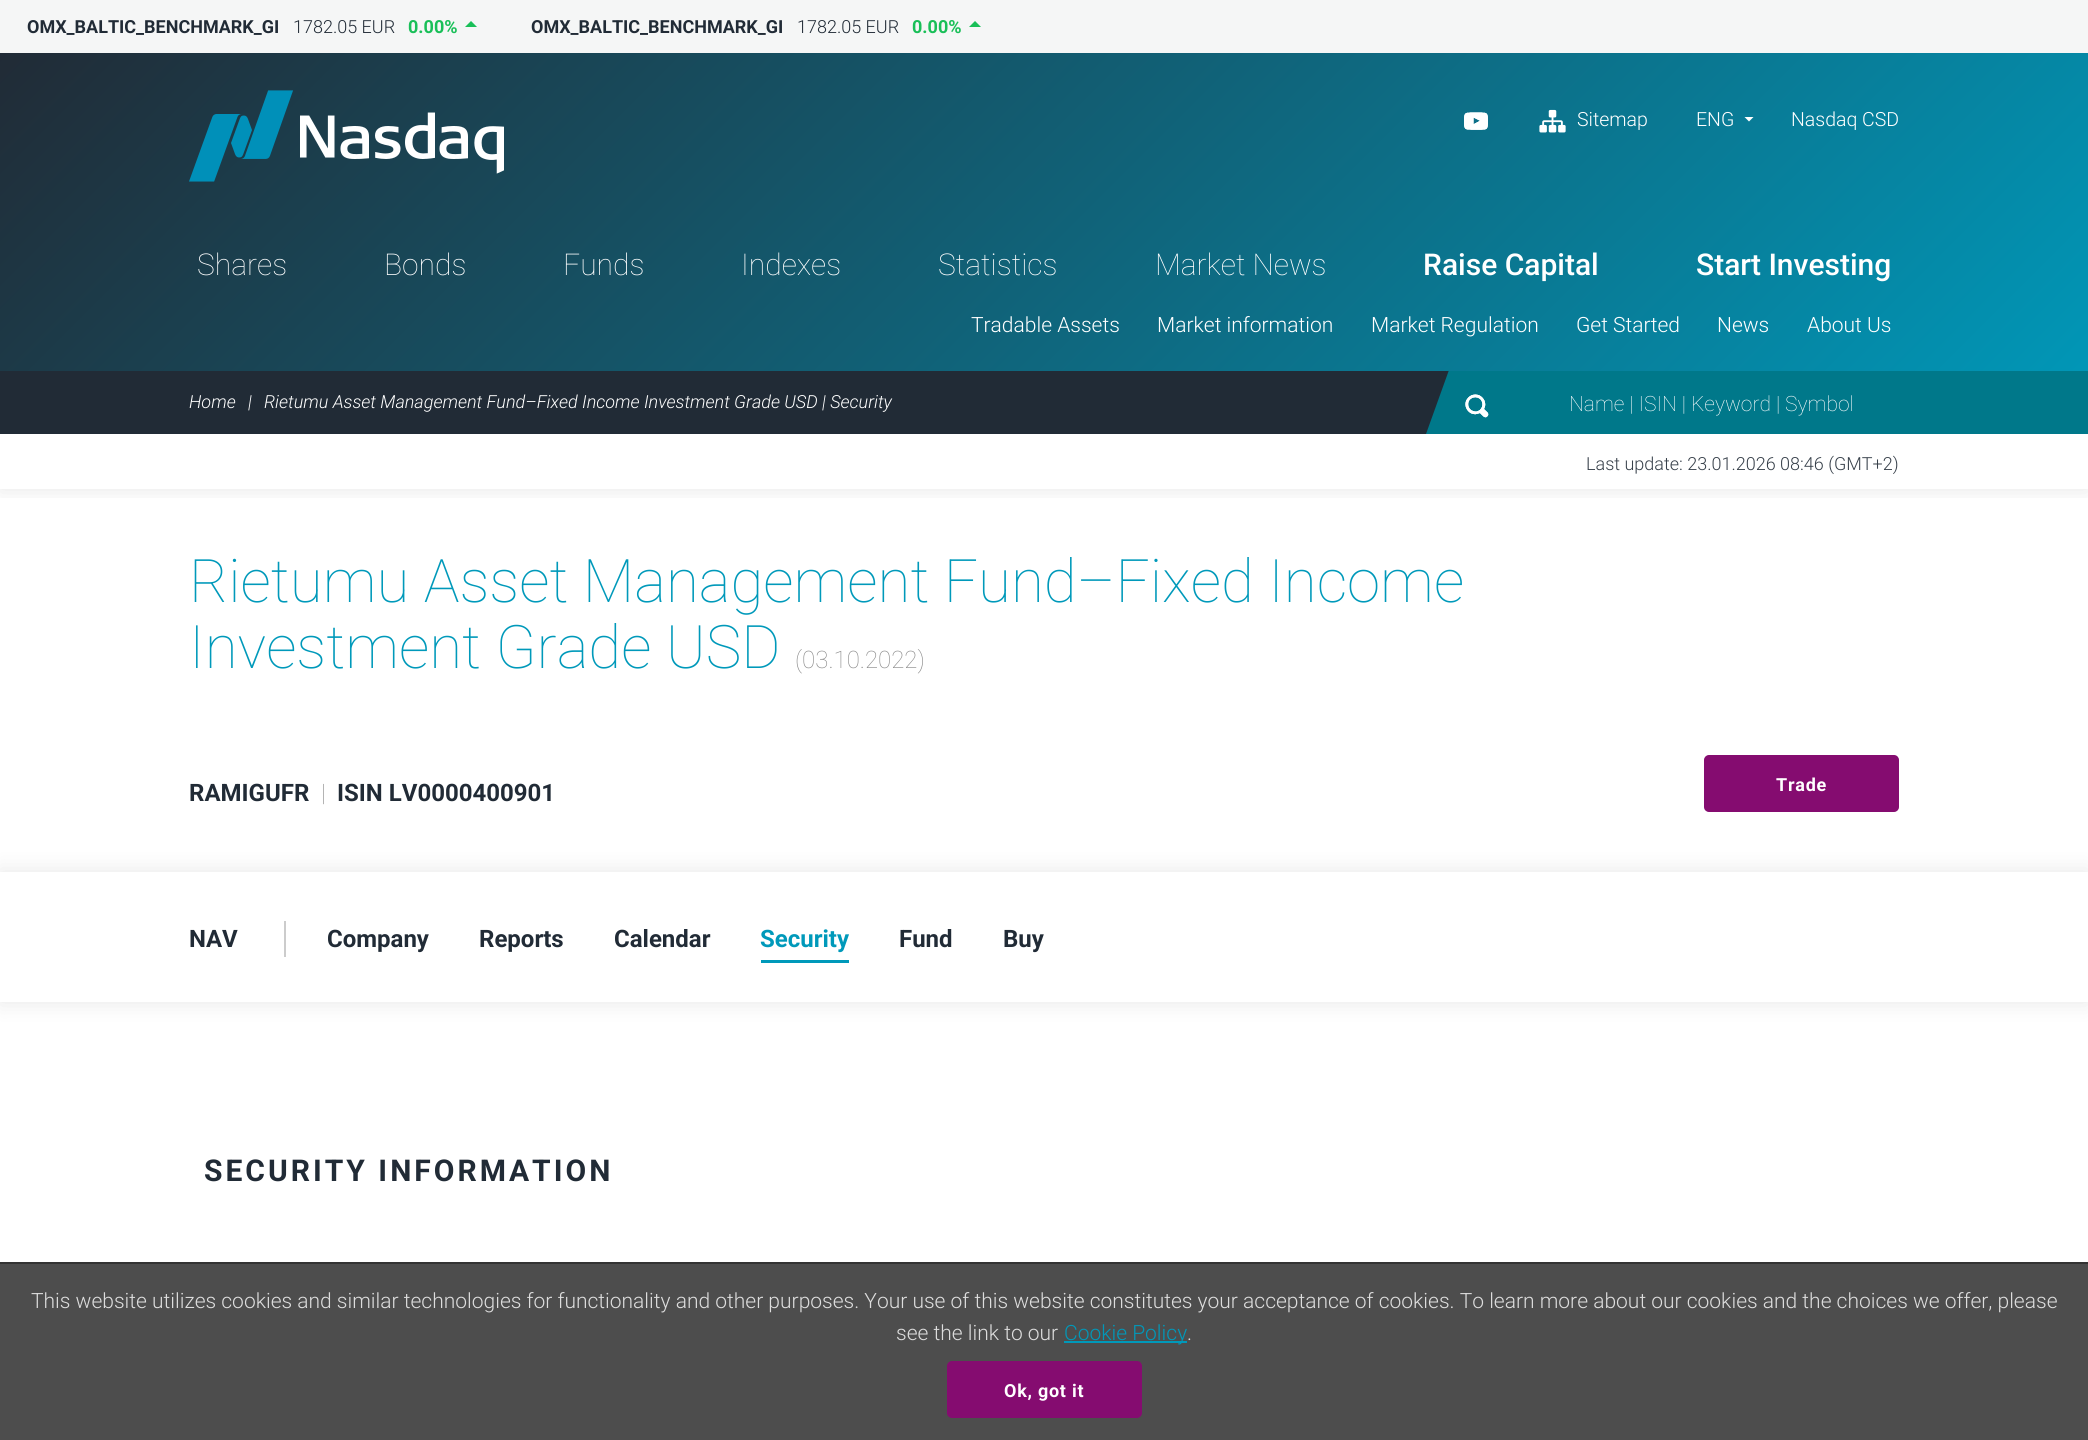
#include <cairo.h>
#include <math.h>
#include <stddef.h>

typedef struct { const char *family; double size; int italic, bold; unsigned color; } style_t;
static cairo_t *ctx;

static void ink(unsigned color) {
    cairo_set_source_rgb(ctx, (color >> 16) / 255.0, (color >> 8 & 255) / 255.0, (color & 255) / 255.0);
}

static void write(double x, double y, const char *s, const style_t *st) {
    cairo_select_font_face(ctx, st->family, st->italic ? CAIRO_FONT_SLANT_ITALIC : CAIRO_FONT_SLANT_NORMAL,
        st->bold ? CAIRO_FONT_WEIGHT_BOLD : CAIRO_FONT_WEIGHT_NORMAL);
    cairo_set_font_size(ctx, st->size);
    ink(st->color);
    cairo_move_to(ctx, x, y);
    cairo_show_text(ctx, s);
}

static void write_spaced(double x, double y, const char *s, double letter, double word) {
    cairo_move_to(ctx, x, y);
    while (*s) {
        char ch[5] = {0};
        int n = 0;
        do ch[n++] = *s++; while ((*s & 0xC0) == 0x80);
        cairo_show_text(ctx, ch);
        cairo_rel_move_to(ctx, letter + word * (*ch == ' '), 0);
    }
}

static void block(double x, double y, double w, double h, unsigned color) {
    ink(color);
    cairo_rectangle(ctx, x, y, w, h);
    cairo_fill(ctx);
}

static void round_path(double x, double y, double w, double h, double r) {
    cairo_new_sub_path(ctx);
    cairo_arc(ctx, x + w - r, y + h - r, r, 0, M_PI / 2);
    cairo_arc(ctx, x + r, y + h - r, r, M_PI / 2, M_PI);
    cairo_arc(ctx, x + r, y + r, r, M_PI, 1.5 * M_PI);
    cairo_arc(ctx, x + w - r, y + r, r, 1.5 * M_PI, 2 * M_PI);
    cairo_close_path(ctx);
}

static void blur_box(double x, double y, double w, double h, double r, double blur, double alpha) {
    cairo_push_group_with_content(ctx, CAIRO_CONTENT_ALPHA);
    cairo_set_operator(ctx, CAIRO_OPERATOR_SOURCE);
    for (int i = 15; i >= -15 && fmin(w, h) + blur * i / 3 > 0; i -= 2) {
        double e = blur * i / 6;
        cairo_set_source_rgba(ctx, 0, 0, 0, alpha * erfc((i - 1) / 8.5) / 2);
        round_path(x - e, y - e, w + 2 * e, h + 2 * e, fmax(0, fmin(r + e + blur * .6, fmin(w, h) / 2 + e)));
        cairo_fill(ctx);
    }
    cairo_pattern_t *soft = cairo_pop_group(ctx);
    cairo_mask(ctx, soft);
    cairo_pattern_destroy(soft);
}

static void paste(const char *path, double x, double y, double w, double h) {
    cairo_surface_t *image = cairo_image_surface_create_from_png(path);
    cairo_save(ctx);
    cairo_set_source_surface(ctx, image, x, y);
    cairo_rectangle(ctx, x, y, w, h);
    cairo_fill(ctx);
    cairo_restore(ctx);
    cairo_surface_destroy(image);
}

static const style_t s1 = {"Roboto", 18, 0, 1, 0x212b36};
static const style_t s2 = {"Roboto Light", 18, 0, 0, 0x212b36};
static const style_t s3 = {"Roboto", 18, 0, 1, 0x19bf58};
static const style_t s4 = {"Roboto Light", 19.5, 0, 0, 0xffffff};
static const style_t s5 = {"Roboto Thin", 30, 0, 0, 0xffffff};
static const style_t s6 = {"Roboto Medium", 30, 0, 0, 0xffffff};
static const style_t s7 = {"Roboto Light", 21, 0, 0, 0xffffff};
static const style_t s8 = {"Roboto Light", 18, 1, 0, 0xffffff};
static const style_t s9 = {"Roboto Thin", 21, 0, 0, 0xffffff};
static const style_t s10 = {"Roboto Light", 18, 0, 0, 0x37404a};
static const style_t s11 = {"Roboto Thin", 60, 0, 0, 0x0099ba};
static const style_t s12 = {"Roboto Thin", 24, 0, 0, 0x888888};
static const style_t s13 = {"Roboto", 24, 0, 1, 0x212b36};
static const style_t s14 = {"Roboto", 24, 0, 1, 0x0099ba};
static const style_t s15 = {"Roboto Light", 21, 0, 0, 0xdddddd};
static const style_t s16 = {"Roboto Light", 21, 0, 0, 0x0099ba};

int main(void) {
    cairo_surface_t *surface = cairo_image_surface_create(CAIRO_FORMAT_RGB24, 2088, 1440);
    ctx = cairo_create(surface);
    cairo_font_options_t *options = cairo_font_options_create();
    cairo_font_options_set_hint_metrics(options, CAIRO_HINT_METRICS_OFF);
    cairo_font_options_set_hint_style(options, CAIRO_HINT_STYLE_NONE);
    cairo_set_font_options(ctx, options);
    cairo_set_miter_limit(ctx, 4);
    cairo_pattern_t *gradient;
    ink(0xffffff);
    cairo_paint(ctx);
    block(0, 0, 2088, 53, 0xf5f6f6);
    write(27, 33, "OMX_BALTIC_BENCHMARK_GI", &s1);
    write(293, 33, "1782.05 EUR", &s2);
    write(408, 33, "0.00%", &s3);
    cairo_new_path(ctx);
    cairo_move_to(ctx, 477, 27);
    cairo_line_to(ctx, 465, 27);
    cairo_line_to(ctx, 471, 21);
    cairo_close_path(ctx);
    cairo_fill(ctx);
    write(531, 33, "OMX_BALTIC_BENCHMARK_GI", &s1);
    write(797, 33, "1782.05 EUR", &s2);
    write(912, 33, "0.00%", &s3);
    cairo_new_path(ctx);
    cairo_move_to(ctx, 981, 27);
    cairo_line_to(ctx, 969, 27);
    cairo_line_to(ctx, 975, 21);
    cairo_close_path(ctx);
    cairo_fill(ctx);
    gradient = cairo_pattern_create_linear(427, -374, 1661, 860);
    cairo_pattern_add_color_stop_rgba(gradient, 0, 0.129, 0.169, 0.212, 1);
    cairo_pattern_add_color_stop_rgba(gradient, 1, 0, 0.6, 0.729, 1);
    cairo_set_source(ctx, gradient);
    cairo_pattern_destroy(gradient);
    cairo_rectangle(ctx, 0, 53, 2088, 318);
    cairo_fill(ctx);
    paste("pic1.png", 189, 90, 315, 92);
    paste("pic2.png", 1464, 112, 24, 18);
    paste("pic3.png", 1539, 109, 27, 24);
    write(1577, 126, "Sitemap", &s4);
    write(1696, 126, "ENG", &s4);
    cairo_new_path(ctx);
    cairo_move_to(ctx, 1744.5, 117);
    cairo_line_to(ctx, 1753.5, 117);
    cairo_line_to(ctx, 1749, 121.5);
    cairo_close_path(ctx);
    cairo_fill(ctx);
    write(1791, 126, "Nasdaq CSD", &s4);
    write(197, 275, "Shares", &s5);
    write(384, 275, "Bonds", &s5);
    write(563, 275, "Funds", &s5);
    write(741, 275, "Indexes", &s5);
    write(938, 275, "Statistics", &s5);
    write(1155, 275, "Market News", &s5);
    write(1423, 275, "Raise Capital", &s6);
    write(1696, 275, "Start Investing", &s6);
    write(971, 332, "Tradable Assets", &s7);
    write(1157, 332, "Market information", &s7);
    write(1371, 332, "Market Regulation", &s7);
    write(1576, 332, "Get Started", &s7);
    write(1717, 332, "News", &s7);
    write(1807, 332, "About Us", &s7);
    cairo_save(ctx);
    cairo_rectangle(ctx, 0, 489, 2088, 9);
    cairo_clip(ctx);
    ink(0x000000);
    blur_box(0, 434, 2088, 55, 0, 11, 0.1);
    cairo_restore(ctx);
    block(0, 371, 1449, 63, 0x212b36);
    block(1449, 371, 639, 63, 0x00788a);
    write(189, 408, "Home", &s8);
    write(248, 408, "|", &s8);
    write(264, 408, "Rietumu Asset Management Fund–Fixed Income Investment Grade USD | Security", &s8);
    ink(0x00788a);
    cairo_new_path(ctx);
    cairo_move_to(ctx, 1449, 434);
    cairo_line_to(ctx, 1426, 434);
    cairo_line_to(ctx, 1449, 370);
    cairo_close_path(ctx);
    cairo_fill(ctx);
    paste("pic4.png", 1465, 394, 24, 24);
    write(1569, 411, "Name | ISIN | Keyword | Symbol", &s9);
    write(1586, 470, "Last update: 23.01.2026 08:46 (GMT+2)", &s10);
    write(189, 602, "Rietumu Asset Management Fund–Fixed Income", &s11);
    write(189, 668, "Investment Grade USD", &s11);
    write(795, 668, "(03.10.2022)", &s12);
    write(189, 801, "RAMIGUFR", &s13);
    write(321, 801, "|", &s12);
    write(337, 801, "ISIN LV0000400901", &s13);
    ink(0x850c70);
    round_path(1705, 756, 193, 55, 4);
    cairo_fill_preserve(ctx);
    cairo_stroke(ctx);
    cairo_set_font_size(ctx, 18);
    ink(0xffffff);
    write_spaced(1776, 791, "Trade", 0.75, 0);
    cairo_save(ctx);
    cairo_set_fill_rule(ctx, CAIRO_FILL_RULE_EVEN_ODD);
    cairo_new_path(ctx);
    cairo_move_to(ctx, 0, 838);
    cairo_line_to(ctx, 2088, 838);
    cairo_line_to(ctx, 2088, 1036);
    cairo_line_to(ctx, 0, 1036);
    cairo_close_path(ctx);
    cairo_move_to(ctx, 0, 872);
    cairo_line_to(ctx, 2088, 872);
    cairo_line_to(ctx, 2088, 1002);
    cairo_line_to(ctx, 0, 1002);
    cairo_close_path(ctx);
    cairo_clip(ctx);
    ink(0x000000);
    blur_box(0, 872, 2088, 130, 0, 11, 0.1);
    cairo_restore(ctx);
    block(284, 921, 2, 36, 0xcccccc);
    write(189, 947, "NAV", &s13);
    write(327, 947, "Company", &s13);
    write(479, 947, "Reports", &s13);
    write(614, 947, "Calendar", &s13);
    write(760, 947, "Security", &s14);
    block(761, 960, 88, 3, 0x0099ba);
    write(899, 947, "Fund", &s13);
    write(1003, 947, "Buy", &s13);
    cairo_set_font_size(ctx, 30);
    write_spaced(204, 1181, "SECURITY INFORMATION", 3, 0);
    block(0, 1264, 2088, 176, 0x4d4d4d);
    block(0, 1262, 2088, 2, 0x333333);
    write(31, 1308, "This website utilizes cookies and similar technologies for functionality and other purposes. Your use of this website constitutes your acceptance of cookies. To learn more about our cookies and the choices we offer, please", &s15);
    write(896, 1340, "see the link to our", &s15);
    block(1064, 1341, 123, 2, 0x0099ba);
    write(1064, 1340, "Cookie Policy", &s16);
    write(1187, 1340, ".", &s15);
    ink(0x850c70);
    round_path(948, 1362, 193, 55, 4);
    cairo_fill_preserve(ctx);
    cairo_stroke(ctx);
    cairo_select_font_face(ctx, "Roboto", CAIRO_FONT_SLANT_NORMAL, CAIRO_FONT_WEIGHT_BOLD);
    cairo_set_font_size(ctx, 18);
    ink(0xffffff);
    write_spaced(1004, 1397, "Ok, got it", 0.75, 0);
    cairo_surface_write_to_png(surface, "screenshot.png");
    cairo_font_options_destroy(options);
    cairo_destroy(ctx);
    cairo_surface_destroy(surface);
    return 0;
}
